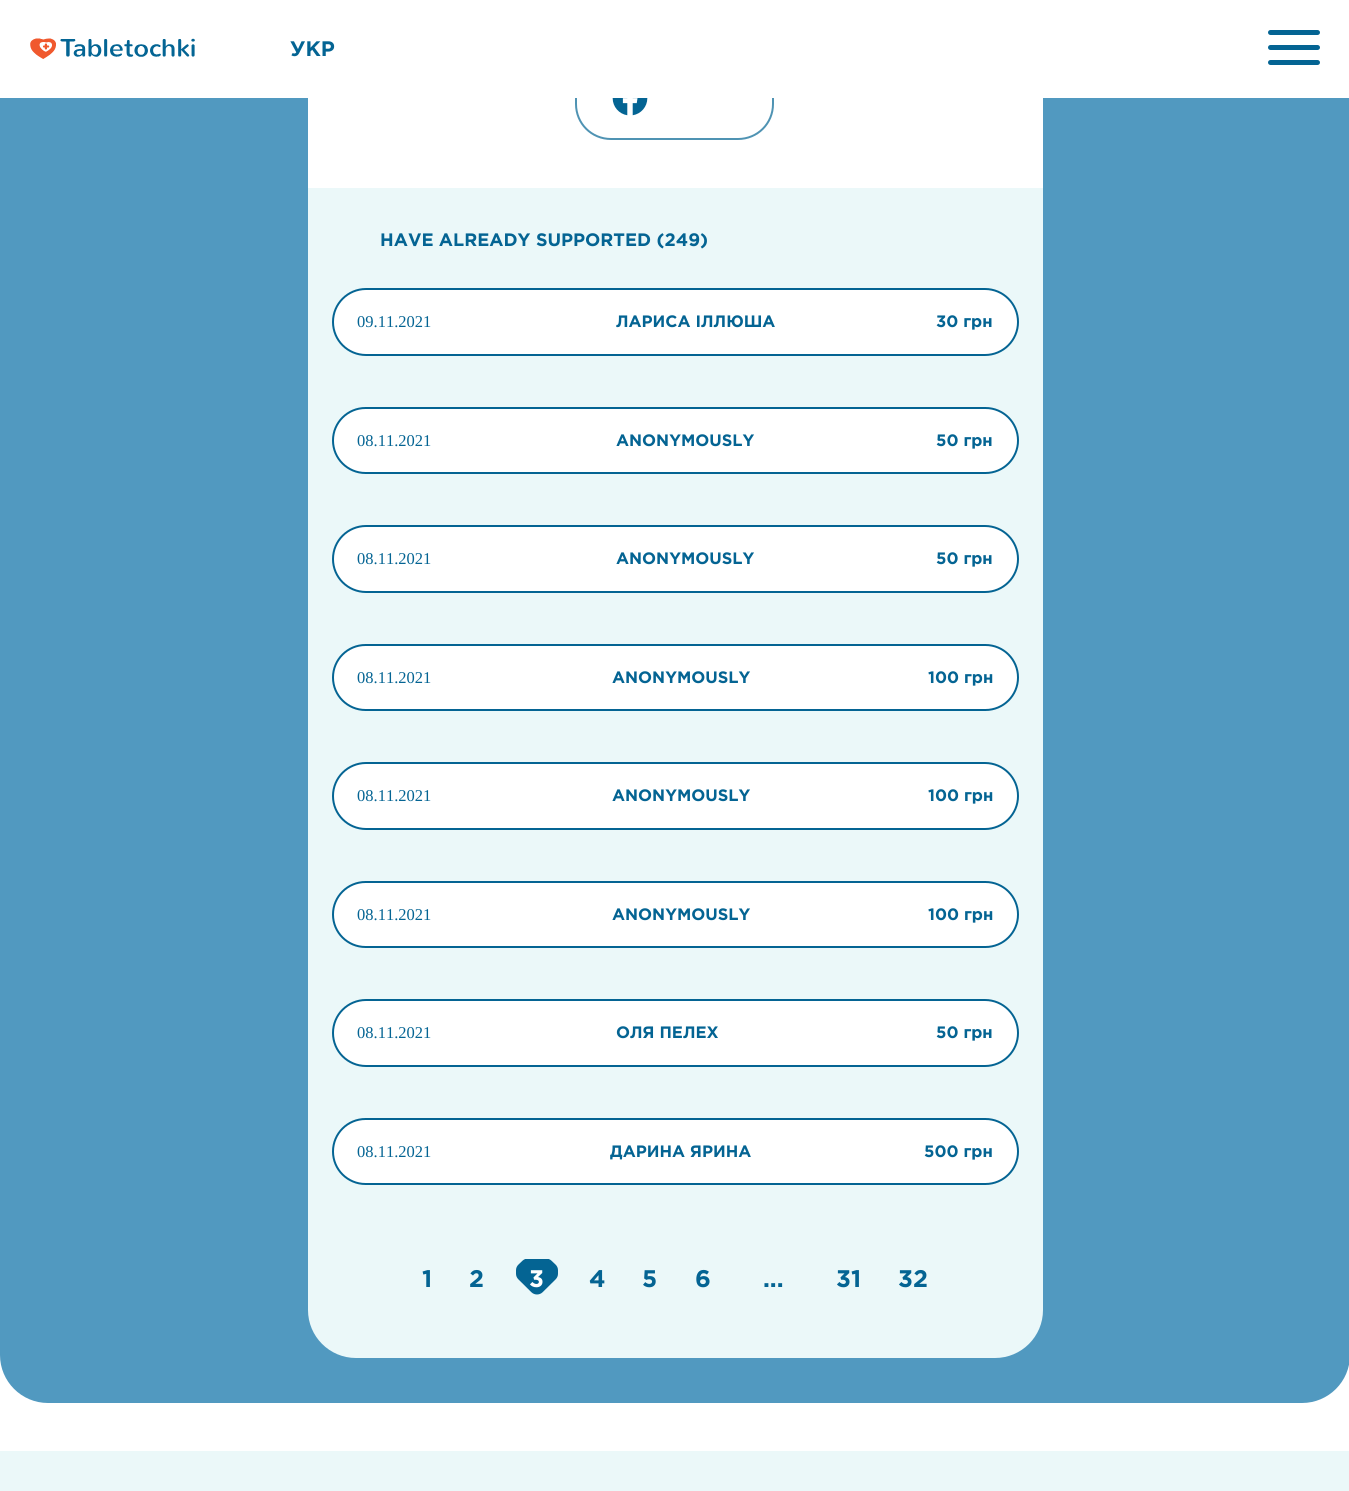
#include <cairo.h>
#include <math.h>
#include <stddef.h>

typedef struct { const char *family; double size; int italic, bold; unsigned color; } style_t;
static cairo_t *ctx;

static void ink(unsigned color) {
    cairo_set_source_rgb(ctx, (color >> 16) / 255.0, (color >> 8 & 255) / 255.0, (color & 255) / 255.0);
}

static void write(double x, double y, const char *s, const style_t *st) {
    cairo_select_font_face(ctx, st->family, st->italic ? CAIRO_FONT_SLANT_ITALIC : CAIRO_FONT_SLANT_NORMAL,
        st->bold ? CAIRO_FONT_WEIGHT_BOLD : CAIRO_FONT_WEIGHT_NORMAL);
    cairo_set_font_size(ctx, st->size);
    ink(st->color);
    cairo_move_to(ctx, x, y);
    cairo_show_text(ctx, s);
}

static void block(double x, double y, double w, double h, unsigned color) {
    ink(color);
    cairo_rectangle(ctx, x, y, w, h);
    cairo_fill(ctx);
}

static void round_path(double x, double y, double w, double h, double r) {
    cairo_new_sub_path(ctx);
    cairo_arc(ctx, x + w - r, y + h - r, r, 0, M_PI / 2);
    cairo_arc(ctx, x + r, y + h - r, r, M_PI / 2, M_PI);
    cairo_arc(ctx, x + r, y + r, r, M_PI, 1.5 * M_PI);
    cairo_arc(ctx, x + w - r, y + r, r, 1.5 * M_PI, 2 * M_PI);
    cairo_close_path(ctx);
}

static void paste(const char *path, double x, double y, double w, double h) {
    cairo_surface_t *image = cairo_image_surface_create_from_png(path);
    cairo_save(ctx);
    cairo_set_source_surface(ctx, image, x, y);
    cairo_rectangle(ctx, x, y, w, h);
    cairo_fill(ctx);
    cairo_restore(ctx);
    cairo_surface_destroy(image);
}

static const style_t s1 = {"Gotham", 21, 0, 1, 0x046493};
static const style_t s2 = {"Gotham", 18, 0, 1, 0x046493};
static const style_t s3 = {"Liberation Serif", 16.5, 0, 0, 0x046493};
static const style_t s4 = {"Gotham", 16.5, 0, 1, 0x046493};
static const style_t s5 = {"Gotham", 24, 0, 1, 0x046493};
static const style_t s6 = {"Gotham", 24, 0, 1, 0xffffff};

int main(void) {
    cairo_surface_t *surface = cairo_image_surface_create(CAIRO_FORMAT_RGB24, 1349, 1491);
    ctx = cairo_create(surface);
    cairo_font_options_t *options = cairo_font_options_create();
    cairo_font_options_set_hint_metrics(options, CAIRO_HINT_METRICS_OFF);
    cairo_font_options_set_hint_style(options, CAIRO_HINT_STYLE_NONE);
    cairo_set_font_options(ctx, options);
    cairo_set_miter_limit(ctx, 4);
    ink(0xffffff);
    cairo_paint(ctx);
    ink(0x5199c0);
    cairo_new_path(ctx);
    cairo_move_to(ctx, 0, -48);
    cairo_line_to(ctx, 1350, -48);
    cairo_line_to(ctx, 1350, 1355);
    cairo_curve_to(ctx, 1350, 1381.5, 1328.5, 1403, 1302, 1403);
    cairo_line_to(ctx, 48, 1403);
    cairo_curve_to(ctx, 21.5, 1403, 0, 1381.5, 0, 1355);
    cairo_close_path(ctx);
    cairo_fill(ctx);
    block(308, 98, 735, 90, 0xffffff);
    cairo_new_path(ctx);
    cairo_move_to(ctx, 576, 57);
    cairo_line_to(ctx, 738, 57);
    cairo_curve_to(ctx, 757.5, 57, 773, 72.5, 773, 92);
    cairo_line_to(ctx, 773, 104);
    cairo_curve_to(ctx, 773, 123.5, 757.5, 139, 738, 139);
    cairo_line_to(ctx, 611, 139);
    cairo_curve_to(ctx, 591.5, 139, 576, 123.5, 576, 104);
    cairo_close_path(ctx);
    ink(0x4f93b3);
    cairo_stroke(ctx);
    block(0, 0, 1349, 98, 0xffffff);
    paste("pic1.png", 30, 38, 165, 21);
    write(290, 56, "УКР", &s1);
    round_path(1268, 30, 52, 5, 2.5);
    cairo_fill(ctx);
    round_path(1268, 45, 52, 5, 2.5);
    cairo_fill(ctx);
    round_path(1268, 60, 52, 5, 2.5);
    cairo_fill(ctx);
    paste("pic2.png", 612, 98, 36, 18);
    ink(0xebf8f9);
    cairo_new_path(ctx);
    cairo_move_to(ctx, 308, 188);
    cairo_line_to(ctx, 1043, 188);
    cairo_line_to(ctx, 1043, 1310);
    cairo_curve_to(ctx, 1043, 1336.5, 1021.5, 1358, 995, 1358);
    cairo_line_to(ctx, 356, 1358);
    cairo_curve_to(ctx, 329.5, 1358, 308, 1336.5, 308, 1310);
    cairo_close_path(ctx);
    cairo_fill(ctx);
    write(380, 246, "HAVE ALREADY SUPPORTED (249)", &s2);
    ink(0xffffff);
    round_path(333, 289, 685, 66, 33);
    cairo_fill_preserve(ctx);
    ink(0x046493);
    cairo_stroke(ctx);
    write(357, 327, "09.11.2021", &s3);
    write(616, 327, "ЛАРИСА ІЛЛЮША", &s4);
    write(936, 327, "30 грн", &s4);
    ink(0xffffff);
    round_path(333, 408, 685, 65, 32.5);
    cairo_fill_preserve(ctx);
    ink(0x046493);
    cairo_stroke(ctx);
    write(357, 446, "08.11.2021", &s3);
    write(616, 446, "ANONYMOUSLY", &s4);
    write(936, 446, "50 грн", &s4);
    ink(0xffffff);
    round_path(333, 526, 685, 66, 33);
    cairo_fill_preserve(ctx);
    ink(0x046493);
    cairo_stroke(ctx);
    write(357, 564, "08.11.2021", &s3);
    write(616, 564, "ANONYMOUSLY", &s4);
    write(936, 564, "50 грн", &s4);
    ink(0xffffff);
    round_path(333, 645, 685, 65, 32.5);
    cairo_fill_preserve(ctx);
    ink(0x046493);
    cairo_stroke(ctx);
    write(357, 683, "08.11.2021", &s3);
    write(612, 683, "ANONYMOUSLY", &s4);
    write(928, 683, "100 грн", &s4);
    ink(0xffffff);
    round_path(333, 763, 685, 66, 33);
    cairo_fill_preserve(ctx);
    ink(0x046493);
    cairo_stroke(ctx);
    write(357, 801, "08.11.2021", &s3);
    write(612, 801, "ANONYMOUSLY", &s4);
    write(928, 801, "100 грн", &s4);
    ink(0xffffff);
    round_path(333, 882, 685, 65, 32.5);
    cairo_fill_preserve(ctx);
    ink(0x046493);
    cairo_stroke(ctx);
    write(357, 920, "08.11.2021", &s3);
    write(612, 920, "ANONYMOUSLY", &s4);
    write(928, 920, "100 грн", &s4);
    ink(0xffffff);
    round_path(333, 1000, 685, 66, 33);
    cairo_fill_preserve(ctx);
    ink(0x046493);
    cairo_stroke(ctx);
    write(357, 1038, "08.11.2021", &s3);
    write(616, 1038, "ОЛЯ ПЕЛЕХ", &s4);
    write(936, 1038, "50 грн", &s4);
    ink(0xffffff);
    round_path(333, 1119, 685, 65, 32.5);
    cairo_fill_preserve(ctx);
    ink(0x046493);
    cairo_stroke(ctx);
    write(357, 1157, "08.11.2021", &s3);
    write(610, 1157, "ДАРИНА ЯРИНА", &s4);
    write(924, 1157, "500 грн", &s4);
    write(422, 1287, "1", &s5);
    write(469, 1287, "2", &s5);
    paste("pic3.png", 516, 1259, 42, 36);
    write(529, 1287, "3", &s6);
    write(589, 1287, "4", &s5);
    write(642, 1287, "5", &s5);
    write(695, 1287, "6", &s5);
    write(763, 1287, "...", &s5);
    write(836, 1287, "31", &s5);
    write(898, 1287, "32", &s5);
    block(0, 1451, 1349, 40, 0xebf8f9);
    cairo_surface_write_to_png(surface, "screenshot.png");
    cairo_font_options_destroy(options);
    cairo_destroy(ctx);
    cairo_surface_destroy(surface);
    return 0;
}
